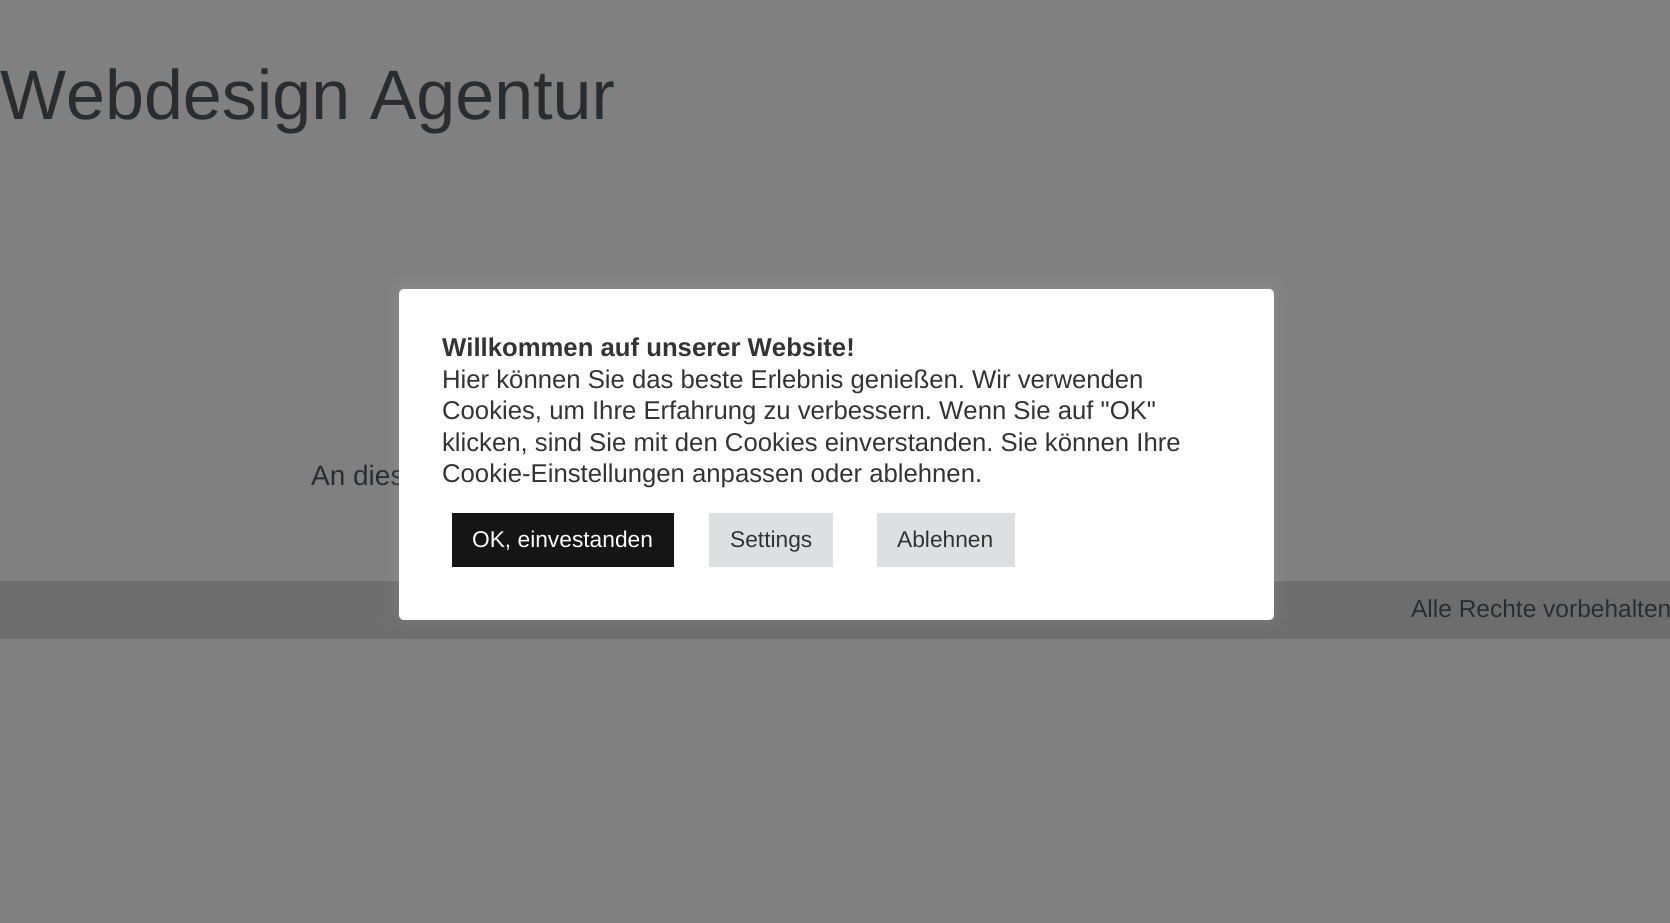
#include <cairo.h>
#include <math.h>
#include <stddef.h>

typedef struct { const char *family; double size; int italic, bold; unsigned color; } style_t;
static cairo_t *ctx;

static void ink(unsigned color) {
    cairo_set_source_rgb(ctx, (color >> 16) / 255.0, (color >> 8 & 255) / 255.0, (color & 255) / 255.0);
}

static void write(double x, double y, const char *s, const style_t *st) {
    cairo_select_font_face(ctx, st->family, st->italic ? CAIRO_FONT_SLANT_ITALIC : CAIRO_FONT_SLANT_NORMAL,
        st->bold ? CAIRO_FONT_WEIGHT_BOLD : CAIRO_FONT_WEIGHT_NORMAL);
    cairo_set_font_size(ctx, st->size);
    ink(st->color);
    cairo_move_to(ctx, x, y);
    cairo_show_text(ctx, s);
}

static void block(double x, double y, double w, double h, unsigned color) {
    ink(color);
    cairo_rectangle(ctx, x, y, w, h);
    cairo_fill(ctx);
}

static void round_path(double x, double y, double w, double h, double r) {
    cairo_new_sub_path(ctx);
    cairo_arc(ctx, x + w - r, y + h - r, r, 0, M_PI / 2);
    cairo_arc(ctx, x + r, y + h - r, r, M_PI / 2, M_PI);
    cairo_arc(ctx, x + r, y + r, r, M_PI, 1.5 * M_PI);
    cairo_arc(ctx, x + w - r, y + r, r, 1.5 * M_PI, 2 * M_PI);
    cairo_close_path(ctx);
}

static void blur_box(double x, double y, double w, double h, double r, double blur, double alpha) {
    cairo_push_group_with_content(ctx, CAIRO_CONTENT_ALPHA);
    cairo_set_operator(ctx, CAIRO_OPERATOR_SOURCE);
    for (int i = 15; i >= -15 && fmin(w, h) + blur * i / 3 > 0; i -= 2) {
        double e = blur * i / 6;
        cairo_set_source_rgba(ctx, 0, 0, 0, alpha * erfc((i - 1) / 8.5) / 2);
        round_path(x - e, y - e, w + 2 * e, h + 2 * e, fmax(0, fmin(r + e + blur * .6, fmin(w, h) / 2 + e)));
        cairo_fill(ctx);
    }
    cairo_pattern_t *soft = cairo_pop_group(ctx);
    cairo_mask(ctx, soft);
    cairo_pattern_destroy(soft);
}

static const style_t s1 = {"Liberation Sans", 70, 0, 0, 0x2a2d30};
static const style_t s2 = {"Liberation Sans", 28, 0, 0, 0x2a2d30};
static const style_t s3 = {"Liberation Sans", 25.7, 0, 1, 0x333333};
static const style_t s4 = {"Liberation Sans", 25.7, 0, 0, 0x333333};
static const style_t s5 = {"Liberation Sans", 22.75, 0, 0, 0xffffff};
static const style_t s6 = {"Liberation Sans", 22.75, 0, 0, 0x333333};
static const style_t s7 = {"Liberation Sans", 24.5, 0, 0, 0x2a2d30};

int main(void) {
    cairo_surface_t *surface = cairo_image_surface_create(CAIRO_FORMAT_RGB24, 1670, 923);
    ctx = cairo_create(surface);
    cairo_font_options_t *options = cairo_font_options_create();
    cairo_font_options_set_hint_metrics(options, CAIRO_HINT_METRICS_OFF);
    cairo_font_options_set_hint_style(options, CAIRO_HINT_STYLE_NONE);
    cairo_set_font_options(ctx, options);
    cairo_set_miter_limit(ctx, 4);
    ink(0x808080);
    cairo_paint(ctx);
    write(0, 119, "Webdesign Agentur", &s1);
    write(311, 485, "An dies", &s2);
    block(0, 581, 1670, 58, 0x6d6d6d);
    ink(0xacabab);
    blur_box(399, 287, 875, 331, 5, 9, 0.3);
    ink(0xffffff);
    round_path(399, 289, 875, 331, 5);
    cairo_fill(ctx);
    write(442, 356, "Willkommen auf unserer Website!", &s3);
    write(442, 388, "Hier können Sie das beste Erlebnis genießen. Wir verwenden", &s4);
    write(442, 419, "Cookies, um Ihre Erfahrung zu verbessern. Wenn Sie auf \"OK\"", &s4);
    write(442, 451, "klicken, sind Sie mit den Cookies einverstanden. Sie können Ihre", &s4);
    write(442, 482, "Cookie-Einstellungen anpassen oder ablehnen.", &s4);
    block(452, 513, 222, 54, 0x151515);
    write(472, 547, "OK, einvestanden", &s5);
    block(709, 513, 124, 54, 0xdedfe0);
    write(730, 547, "Settings", &s6);
    block(877, 513, 138, 54, 0xdedfe0);
    write(897, 547, "Ablehnen", &s6);
    write(1411, 617, "Alle Rechte vorbehalten", &s7);
    cairo_surface_write_to_png(surface, "screenshot.png");
    cairo_font_options_destroy(options);
    cairo_destroy(ctx);
    cairo_surface_destroy(surface);
    return 0;
}
